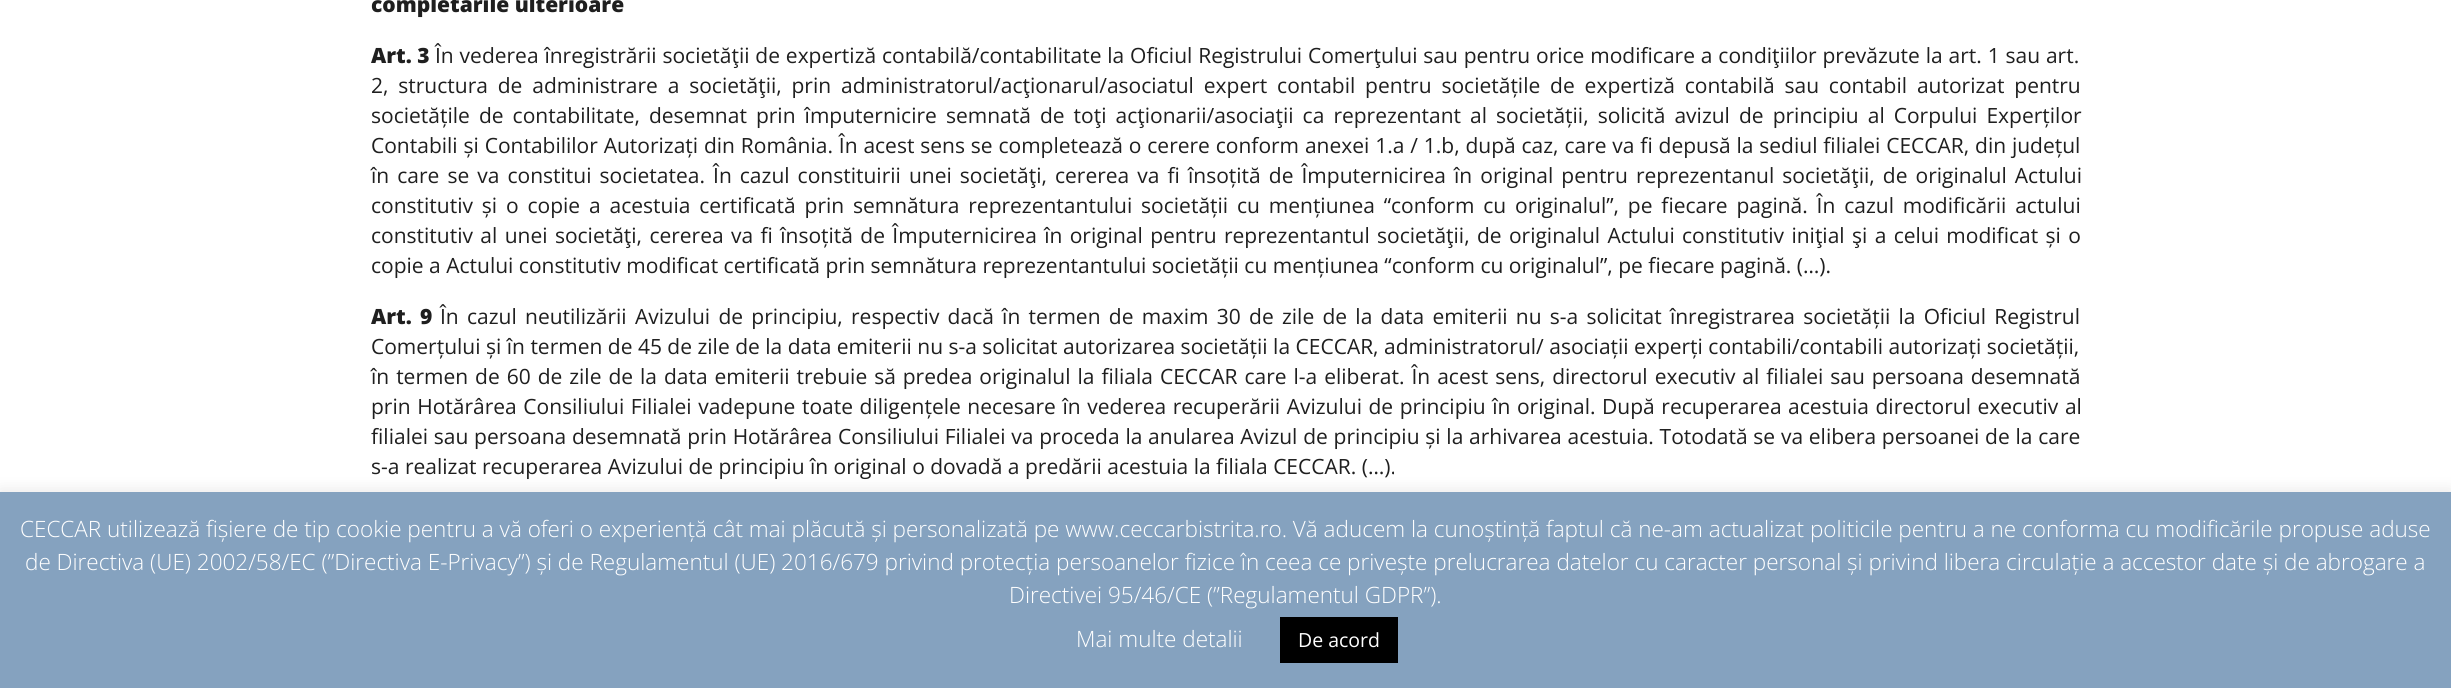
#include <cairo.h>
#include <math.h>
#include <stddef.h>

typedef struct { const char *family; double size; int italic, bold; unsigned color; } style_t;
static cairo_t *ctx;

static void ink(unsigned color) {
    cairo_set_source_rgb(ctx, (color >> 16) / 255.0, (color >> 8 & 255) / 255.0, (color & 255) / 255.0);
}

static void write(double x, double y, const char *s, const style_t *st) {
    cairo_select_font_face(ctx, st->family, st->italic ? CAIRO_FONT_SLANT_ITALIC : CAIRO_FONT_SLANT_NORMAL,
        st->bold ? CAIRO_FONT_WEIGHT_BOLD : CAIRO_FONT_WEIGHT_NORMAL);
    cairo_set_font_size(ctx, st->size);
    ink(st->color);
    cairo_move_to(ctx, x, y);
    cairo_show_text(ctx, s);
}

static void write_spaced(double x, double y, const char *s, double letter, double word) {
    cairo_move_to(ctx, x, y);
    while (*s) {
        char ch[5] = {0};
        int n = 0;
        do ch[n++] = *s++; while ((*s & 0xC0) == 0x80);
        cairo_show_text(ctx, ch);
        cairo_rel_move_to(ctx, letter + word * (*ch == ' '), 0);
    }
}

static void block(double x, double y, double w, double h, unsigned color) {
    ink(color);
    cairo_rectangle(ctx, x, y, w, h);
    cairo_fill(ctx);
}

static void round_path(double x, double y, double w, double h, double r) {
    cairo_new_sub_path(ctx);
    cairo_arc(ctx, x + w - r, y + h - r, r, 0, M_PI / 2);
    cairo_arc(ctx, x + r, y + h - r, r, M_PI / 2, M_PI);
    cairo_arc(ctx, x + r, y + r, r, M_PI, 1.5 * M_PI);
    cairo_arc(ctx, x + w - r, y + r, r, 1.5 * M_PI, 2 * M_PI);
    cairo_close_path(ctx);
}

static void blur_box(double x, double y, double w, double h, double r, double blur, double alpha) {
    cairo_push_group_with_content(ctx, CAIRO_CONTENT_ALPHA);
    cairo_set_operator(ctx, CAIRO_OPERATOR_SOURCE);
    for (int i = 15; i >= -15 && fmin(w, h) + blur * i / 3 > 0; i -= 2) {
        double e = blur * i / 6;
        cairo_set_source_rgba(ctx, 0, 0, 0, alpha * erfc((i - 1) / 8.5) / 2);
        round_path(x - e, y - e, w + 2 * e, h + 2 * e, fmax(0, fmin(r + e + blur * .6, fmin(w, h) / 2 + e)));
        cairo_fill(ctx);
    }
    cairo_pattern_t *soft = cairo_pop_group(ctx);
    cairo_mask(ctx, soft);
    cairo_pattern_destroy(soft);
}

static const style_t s1 = {"Open Sans ExtraBold", 21, 0, 0, 0x1f1f1f};
static const style_t s2 = {"Open Sans", 21, 0, 0, 0x1f1f1f};
static const style_t s3 = {"Open Sans Light", 22.5, 0, 0, 0xffffff};
static const style_t s4 = {"Open Sans", 19.5, 0, 0, 0xffffff};

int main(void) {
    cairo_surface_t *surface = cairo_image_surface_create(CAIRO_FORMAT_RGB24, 2451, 688);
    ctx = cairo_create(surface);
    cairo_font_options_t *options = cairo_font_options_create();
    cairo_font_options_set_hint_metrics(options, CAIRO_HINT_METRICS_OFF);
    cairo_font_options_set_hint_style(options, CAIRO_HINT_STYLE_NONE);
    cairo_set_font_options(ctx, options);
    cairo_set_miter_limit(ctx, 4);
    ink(0xffffff);
    cairo_paint(ctx);
    write(371, 12, "completările ulterioare", &s1);
    write(371, 63, "Art. 3", &s1);
    cairo_select_font_face(ctx, "Open Sans", CAIRO_FONT_SLANT_NORMAL, CAIRO_FONT_WEIGHT_NORMAL);
    write_spaced(435, 63, "În vederea înregistrării societăţii de expertiză contabilă/contabilitate la Oficiul Registrului Comerţului sau pentru orice modificare a condiţiilor prevăzute la art. 1 sau art.", 0, 0.4);
    write_spaced(371, 93, "2, structura de administrare a societăţii, prin administratorul/acţionarul/asociatul expert contabil pentru societățile de expertiză contabilă sau contabil autorizat pentru", 0, 4.4);
    write_spaced(371, 123, "societățile de contabilitate, desemnat prin împuternicire semnată de toţi acţionarii/asociaţii ca reprezentant al societății, solicită avizul de principiu al Corpului Experților", 0, 3.6);
    write_spaced(371, 153, "Contabili și Contabililor Autorizați din România. În acest sens se completează o cerere conform anexei 1.a / 1.b, după caz, care va fi depusă la sediul filialei CECCAR, din județul", 0, 0.4);
    write_spaced(371, 183, "în care se va constitui societatea. În cazul constituirii unei societăţi, cererea va fi însoțită de Împuternicirea în original pentru reprezentanul societăţii, de originalul Actului", 0, 2.6);
    write_spaced(371, 213, "constitutiv și o copie a acestuia certificată prin semnătura reprezentantului societății cu mențiunea “conform cu originalul”, pe fiecare pagină. În cazul modificării actului", 0, 3.4);
    write_spaced(371, 243, "constitutiv al unei societăţi, cererea va fi însoțită de Împuternicirea în original pentru reprezentantul societăţii, de originalul Actului constitutiv iniţial şi a celui modificat și o", 0, 1.9);
    write(371, 273, "copie a Actului constitutiv modificat certificată prin semnătura reprezentantului societății cu mențiunea “conform cu originalul”, pe fiecare pagină. (…).", &s2);
    cairo_select_font_face(ctx, "Open Sans ExtraBold", CAIRO_FONT_SLANT_NORMAL, CAIRO_FONT_WEIGHT_NORMAL);
    write_spaced(371, 324, "Art. 9", 0, 2.8);
    cairo_select_font_face(ctx, "Open Sans", CAIRO_FONT_SLANT_NORMAL, CAIRO_FONT_WEIGHT_NORMAL);
    write_spaced(440, 324, "În cazul neutilizării Avizului de principiu, respectiv dacă în termen de maxim 30 de zile de la data emiterii nu s-a solicitat înregistrarea societății la Oficiul Registrul", 0, 2.8);
    write(371, 354, "Comerțului și în termen de 45 de zile de la data emiterii nu s-a solicitat autorizarea societății la CECCAR, administratorul/ asociații experți contabili/contabili autorizați societății,", &s2);
    write_spaced(371, 384, "în termen de 60 de zile de la data emiterii trebuie să predea originalul la filiala CECCAR care l-a eliberat. În acest sens, directorul executiv al filialei sau persoana desemnată", 0, 1.5);
    write_spaced(371, 414, "prin Hotărârea Consiliului Filialei vadepune toate diligențele necesare în vederea recuperării Avizului de principiu în original. După recuperarea acestuia directorul executiv al", 0, 1.1);
    write_spaced(371, 444, "filialei sau persoana desemnată prin Hotărârea Consiliului Filialei va proceda la anularea Avizul de principiu și la arhivarea acestuia. Totodată se va elibera persoanei de la care", 0, 0.3);
    write(371, 474, "s-a realizat recuperarea Avizului de principiu în original o dovadă a predării acestuia la filiala CECCAR. (…).", &s2);
    ink(0xacabab);
    blur_box(0, 491, 2451, 196, 0, 7.5, 0.3);
    block(0, 492, 2451, 196, 0x85a2bf);
    write(20, 537, "CECCAR utilizează fișiere de tip cookie pentru a vă oferi o experiență cât mai plăcută și personalizată pe www.ceccarbistrita.ro. Vă aducem la cunoștință faptul că ne-am actualizat politicile pentru a ne conforma cu modificările propuse aduse", &s3);
    write(25, 570, "de Directiva (UE) 2002/58/EC (”Directiva E-Privacy”) și de Regulamentul (UE) 2016/679 privind protecția persoanelor fizice în ceea ce privește prelucrarea datelor cu caracter personal și privind libera circulație a accestor date și de abrogare a", &s3);
    write(1009, 603, "Directivei 95/46/CE (”Regulamentul GDPR”).", &s3);
    write(1076, 647, "Mai multe detalii", &s3);
    block(1280, 617, 118, 46, 0x000000);
    write(1298, 647, "De acord", &s4);
    cairo_surface_write_to_png(surface, "screenshot.png");
    cairo_font_options_destroy(options);
    cairo_destroy(ctx);
    cairo_surface_destroy(surface);
    return 0;
}
